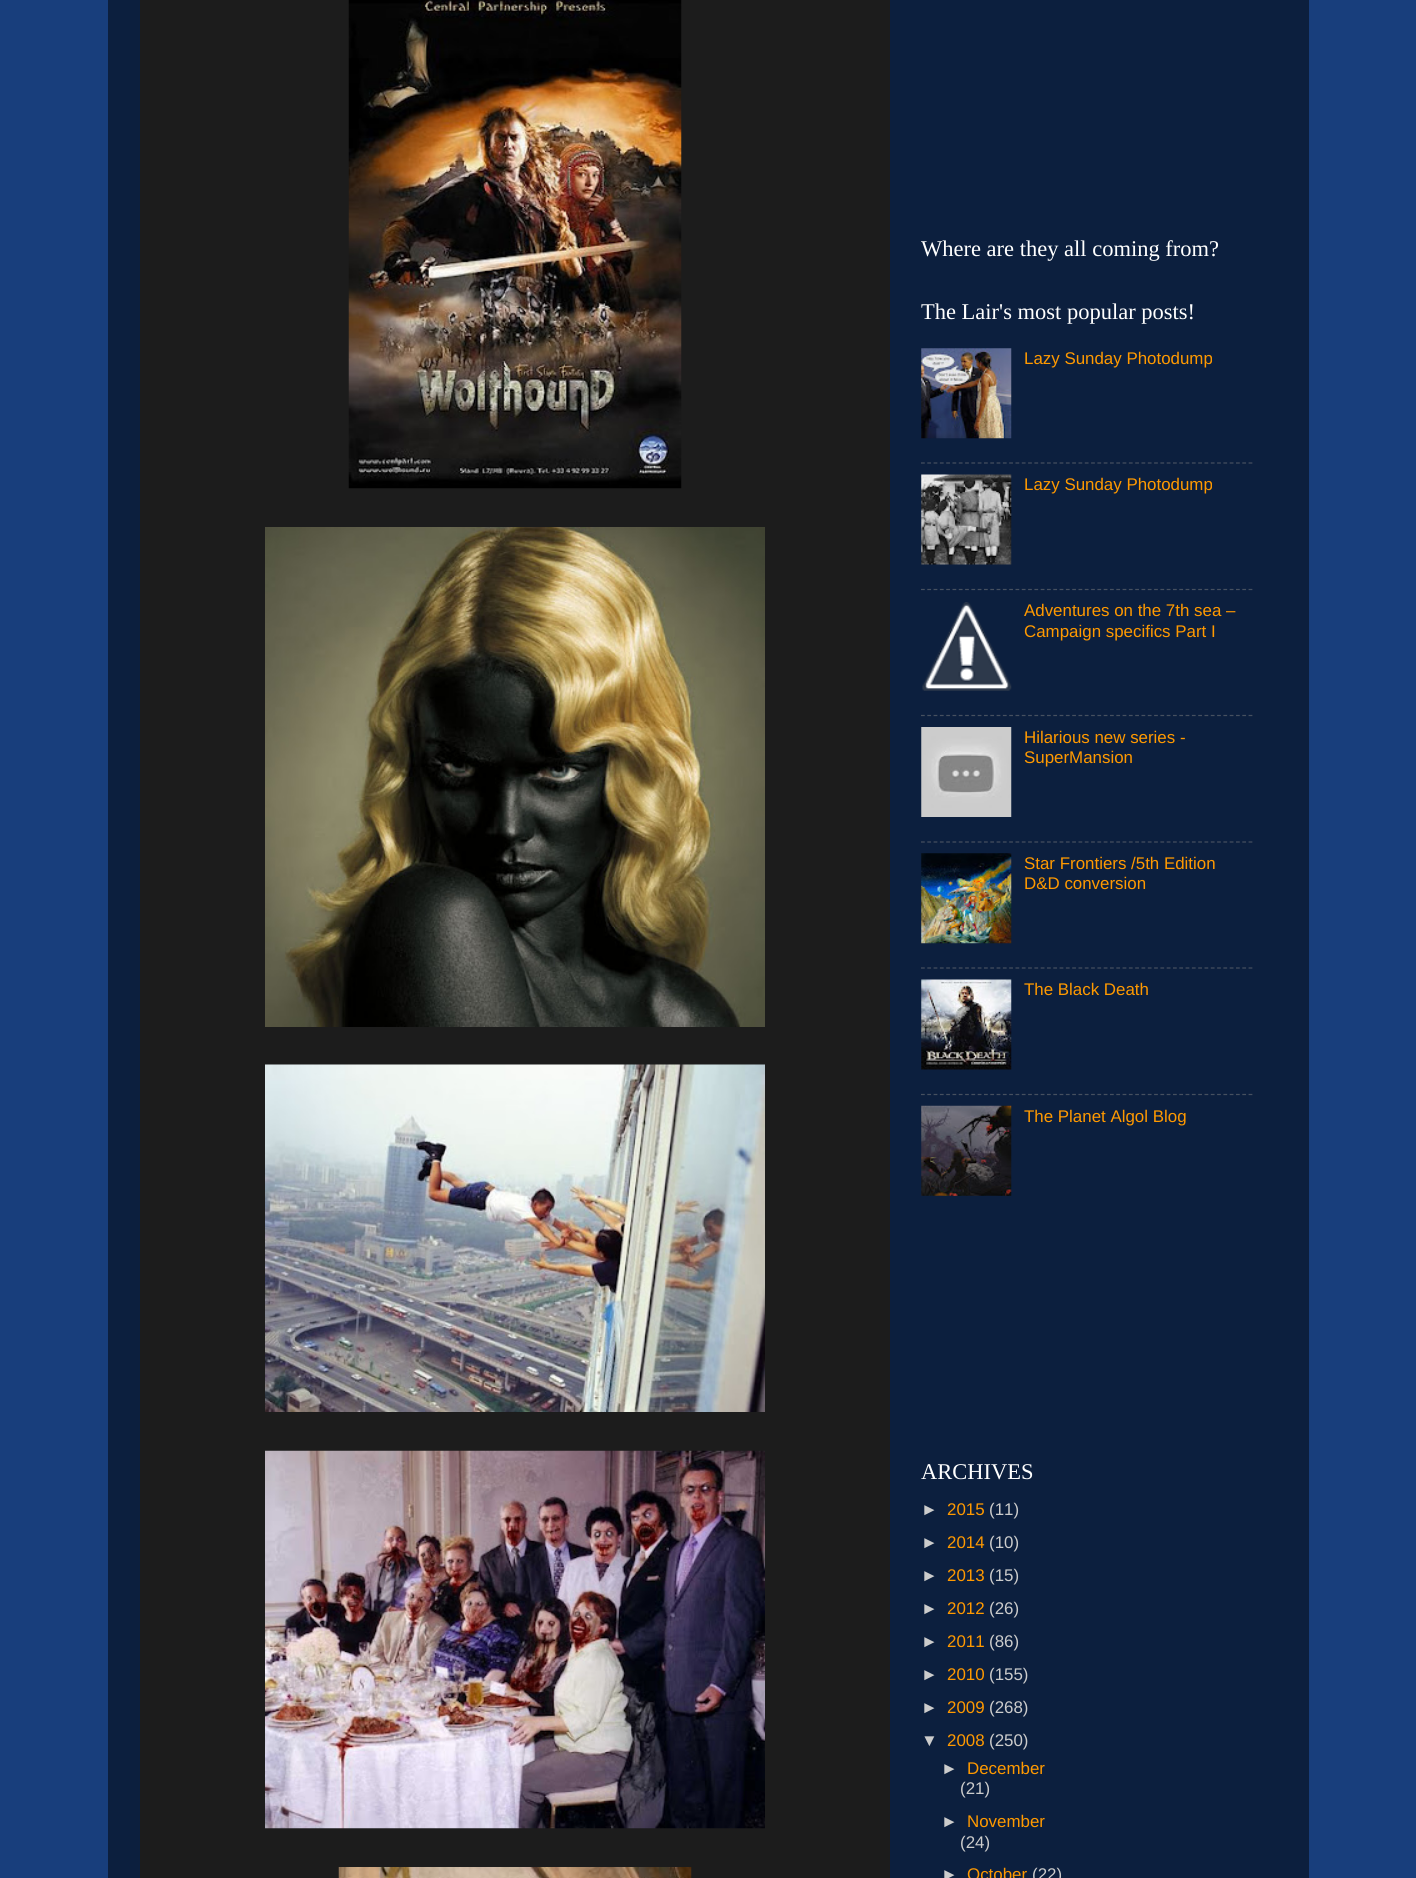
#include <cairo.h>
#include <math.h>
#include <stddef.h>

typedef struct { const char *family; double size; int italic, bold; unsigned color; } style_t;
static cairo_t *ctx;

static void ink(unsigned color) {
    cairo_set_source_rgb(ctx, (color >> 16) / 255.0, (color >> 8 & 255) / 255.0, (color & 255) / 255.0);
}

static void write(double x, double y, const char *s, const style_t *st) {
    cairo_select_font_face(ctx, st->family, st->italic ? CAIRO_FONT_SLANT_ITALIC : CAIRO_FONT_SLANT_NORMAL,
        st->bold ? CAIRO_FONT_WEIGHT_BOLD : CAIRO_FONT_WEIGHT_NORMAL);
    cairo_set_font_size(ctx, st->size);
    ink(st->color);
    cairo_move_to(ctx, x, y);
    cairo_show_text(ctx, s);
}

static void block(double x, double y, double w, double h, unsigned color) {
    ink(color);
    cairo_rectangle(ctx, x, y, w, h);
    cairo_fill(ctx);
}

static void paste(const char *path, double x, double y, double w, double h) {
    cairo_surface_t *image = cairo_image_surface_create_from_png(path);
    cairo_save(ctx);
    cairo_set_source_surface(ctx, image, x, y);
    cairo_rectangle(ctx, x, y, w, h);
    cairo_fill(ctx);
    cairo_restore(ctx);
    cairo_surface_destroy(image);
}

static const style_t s1 = {"Liberation Serif", 22.5, 0, 0, 0xffffff};
static const style_t s2 = {"Liberation Sans", 16.9, 0, 0, 0xff9900};
static const style_t s3 = {"Liberation Sans", 16.9, 0, 0, 0xcccccc};

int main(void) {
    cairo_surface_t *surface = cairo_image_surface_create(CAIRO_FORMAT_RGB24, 1416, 1878);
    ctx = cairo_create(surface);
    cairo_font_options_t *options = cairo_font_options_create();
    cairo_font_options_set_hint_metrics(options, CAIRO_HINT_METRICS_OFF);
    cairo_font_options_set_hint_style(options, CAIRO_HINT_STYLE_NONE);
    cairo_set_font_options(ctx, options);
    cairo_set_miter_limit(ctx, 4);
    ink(0x183e7c);
    cairo_paint(ctx);
    cairo_set_source_rgba(ctx, 0, 0, 0, 0.5);
    cairo_rectangle(ctx, 108, 0, 1201, 1878);
    cairo_fill(ctx);
    block(140, 0, 750, 1878, 0x1c1c1c);
    paste("pic1.png", 348, 0, 334, 489);
    paste("pic2.png", 265, 527, 500, 500);
    paste("pic3.png", 265, 1064, 500, 348);
    paste("pic4.png", 265, 1450, 500, 379);
    paste("pic5.png", 338, 1867, 354, 11);
    write(921, 256, "Where are they all coming from?", &s1);
    write(921, 319, "The Lair's most popular posts!", &s1);
    paste("pic6.png", 921, 348, 91, 91);
    write(1024, 364, "Lazy Sunday Photodump", &s2);
    cairo_new_path(ctx);
    cairo_move_to(ctx, 921, 463);
    cairo_line_to(ctx, 1252.5, 463);
    ink(0x46505f);
    cairo_set_line_width(ctx, 1.2);
    cairo_set_dash(ctx, (double[]){3.75, 2.55}, 2, 0);
    cairo_stroke(ctx);
    paste("pic7.png", 921, 474, 91, 91);
    write(1024, 490, "Lazy Sunday Photodump", &s2);
    cairo_new_path(ctx);
    cairo_move_to(ctx, 921, 589.5);
    cairo_line_to(ctx, 1252.5, 589.5);
    ink(0x46505f);
    cairo_stroke(ctx);
    paste("pic8.png", 922, 602, 90, 89);
    write(1024, 616, "Adventures on the 7th sea –", &s2);
    write(1024, 637, "Campaign specifics Part I", &s2);
    cairo_new_path(ctx);
    cairo_move_to(ctx, 921, 715.5);
    cairo_line_to(ctx, 1252.5, 715.5);
    ink(0x46505f);
    cairo_stroke(ctx);
    paste("pic9.png", 921, 727, 91, 90);
    write(1024, 743, "Hilarious new series -", &s2);
    write(1024, 763, "SuperMansion", &s2);
    cairo_new_path(ctx);
    cairo_move_to(ctx, 921, 842);
    cairo_line_to(ctx, 1252.5, 842);
    ink(0x46505f);
    cairo_stroke(ctx);
    paste("pic10.png", 921, 853, 91, 91);
    write(1024, 869, "Star Frontiers /5th Edition", &s2);
    write(1024, 889, "D&D conversion", &s2);
    cairo_new_path(ctx);
    cairo_move_to(ctx, 921, 968);
    cairo_line_to(ctx, 1252.5, 968);
    ink(0x46505f);
    cairo_stroke(ctx);
    paste("pic11.png", 921, 979, 91, 91);
    write(1024, 995, "The Black Death", &s2);
    cairo_new_path(ctx);
    cairo_move_to(ctx, 921, 1094.5);
    cairo_line_to(ctx, 1252.5, 1094.5);
    ink(0x46505f);
    cairo_stroke(ctx);
    paste("pic12.png", 921, 1105, 91, 91);
    write(1024, 1122, "The Planet Algol Blog", &s2);
    write(921, 1479, "ARCHIVES", &s1);
    write(921, 1515, "►", &s3);
    write(947, 1515, "2015", &s2);
    write(989, 1515, "(11)", &s3);
    write(921, 1548, "►", &s3);
    write(947, 1548, "2014", &s2);
    write(989, 1548, "(10)", &s3);
    write(921, 1581, "►", &s3);
    write(947, 1581, "2013", &s2);
    write(989, 1581, "(15)", &s3);
    write(921, 1614, "►", &s3);
    write(947, 1614, "2012", &s2);
    write(989, 1614, "(26)", &s3);
    write(921, 1647, "►", &s3);
    write(947, 1647, "2011", &s2);
    write(989, 1647, "(86)", &s3);
    write(921, 1680, "►", &s3);
    write(947, 1680, "2010", &s2);
    write(989, 1680, "(155)", &s3);
    write(921, 1713, "►", &s3);
    write(947, 1713, "2009", &s2);
    write(989, 1713, "(268)", &s3);
    write(921, 1746, "▼", &s3);
    write(947, 1746, "2008", &s2);
    write(989, 1746, "(250)", &s3);
    write(941, 1774, "►", &s3);
    write(967, 1774, "December", &s2);
    write(960, 1794, "(21)", &s3);
    write(941, 1827, "►", &s3);
    write(967, 1827, "November", &s2);
    write(960, 1848, "(24)", &s3);
    write(941, 1880, "►", &s3);
    write(967, 1880, "October", &s2);
    write(1032, 1880, "(22)", &s3);
    cairo_surface_write_to_png(surface, "screenshot.png");
    cairo_font_options_destroy(options);
    cairo_destroy(ctx);
    cairo_surface_destroy(surface);
    return 0;
}
